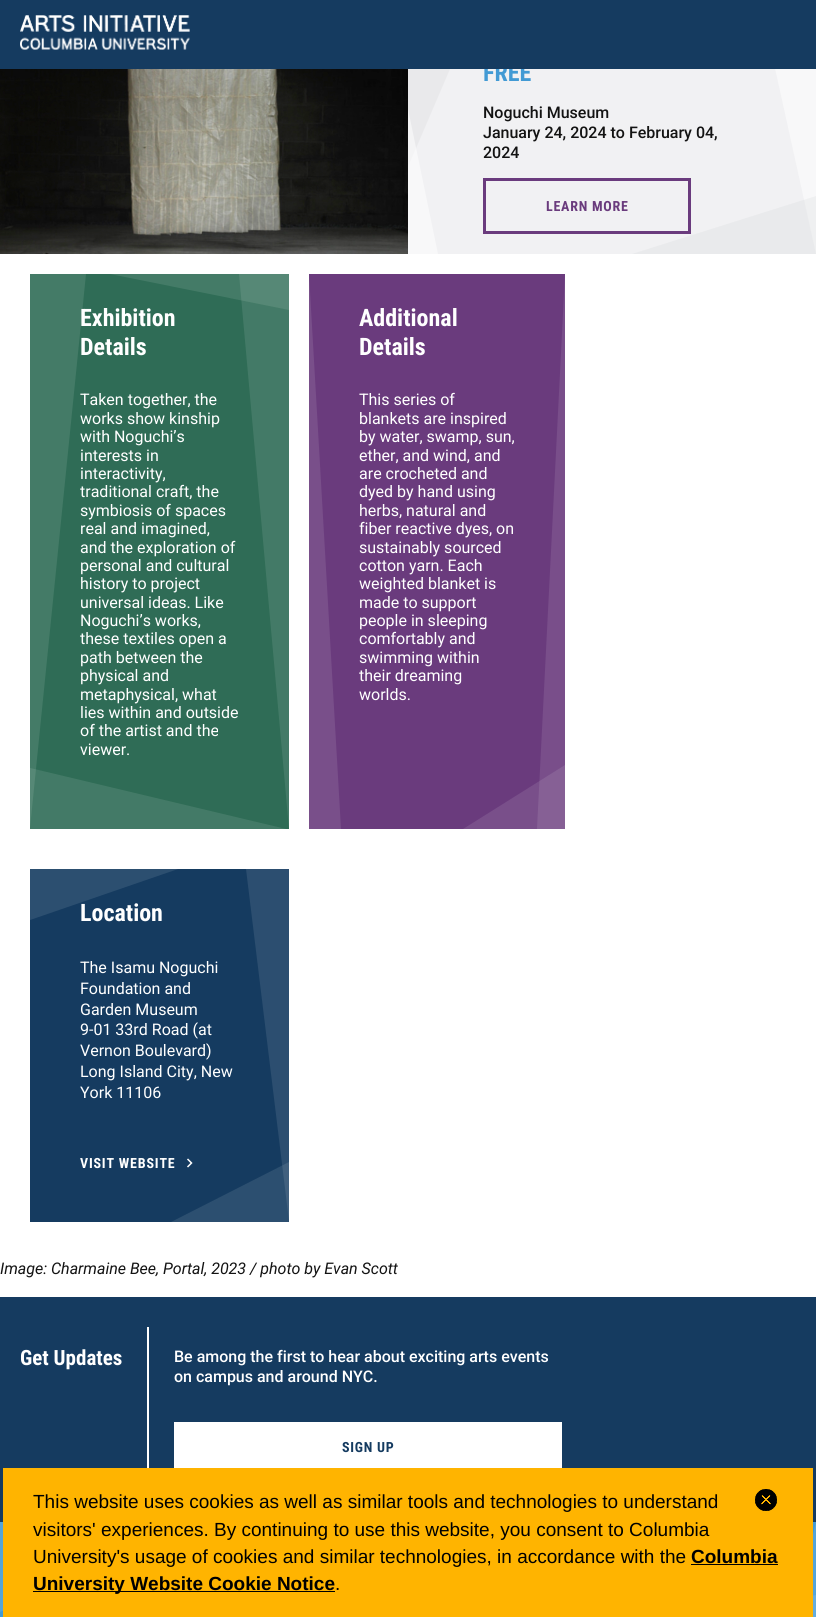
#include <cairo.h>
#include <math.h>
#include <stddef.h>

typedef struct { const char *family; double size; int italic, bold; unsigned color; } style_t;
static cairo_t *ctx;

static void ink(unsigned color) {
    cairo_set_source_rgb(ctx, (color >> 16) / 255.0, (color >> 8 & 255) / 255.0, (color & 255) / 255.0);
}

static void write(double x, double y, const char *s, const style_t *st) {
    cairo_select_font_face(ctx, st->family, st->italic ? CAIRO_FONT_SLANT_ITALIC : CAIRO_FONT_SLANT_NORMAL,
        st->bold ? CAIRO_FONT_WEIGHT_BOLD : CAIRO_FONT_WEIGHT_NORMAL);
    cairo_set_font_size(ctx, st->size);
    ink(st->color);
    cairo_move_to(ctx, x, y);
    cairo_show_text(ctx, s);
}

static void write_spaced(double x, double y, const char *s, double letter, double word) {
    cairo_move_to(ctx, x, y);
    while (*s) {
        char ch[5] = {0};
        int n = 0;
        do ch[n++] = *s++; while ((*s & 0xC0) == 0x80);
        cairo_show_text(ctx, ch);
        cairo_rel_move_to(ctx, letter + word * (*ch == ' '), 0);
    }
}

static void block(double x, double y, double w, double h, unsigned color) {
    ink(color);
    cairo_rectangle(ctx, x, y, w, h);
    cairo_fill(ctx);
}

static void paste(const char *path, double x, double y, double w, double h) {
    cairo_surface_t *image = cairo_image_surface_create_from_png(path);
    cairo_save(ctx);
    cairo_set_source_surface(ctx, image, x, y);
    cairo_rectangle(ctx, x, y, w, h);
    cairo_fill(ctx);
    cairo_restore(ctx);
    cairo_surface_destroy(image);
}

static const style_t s1 = {"Roboto Condensed", 24, 0, 1, 0x429ad4};
static const style_t s2 = {"Roboto Medium", 16, 0, 0, 0x131313};
static const style_t s3 = {"Roboto Condensed", 24, 0, 1, 0xffffff};
static const style_t s4 = {"Roboto", 16, 0, 0, 0xffffff};
static const style_t s5 = {"Roboto", 16, 1, 0, 0x131313};
static const style_t s6 = {"Roboto Condensed", 21, 0, 1, 0xffffff};
static const style_t s7 = {"Roboto Medium", 16, 0, 0, 0xffffff};
static const style_t s8 = {"Liberation Sans", 19, 0, 0, 0x000000};
static const style_t s9 = {"Liberation Sans", 19, 0, 1, 0x000000};

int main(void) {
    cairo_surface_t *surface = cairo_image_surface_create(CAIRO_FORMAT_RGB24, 816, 1617);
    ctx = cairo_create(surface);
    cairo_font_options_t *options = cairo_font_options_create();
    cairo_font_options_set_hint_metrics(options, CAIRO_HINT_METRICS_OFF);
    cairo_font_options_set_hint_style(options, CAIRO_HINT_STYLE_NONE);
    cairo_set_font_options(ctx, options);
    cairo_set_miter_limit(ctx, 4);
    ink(0xffffff);
    cairo_paint(ctx);
    block(408, 69, 408, 185, 0xf1f1f3);
    ink(0xe9e9eb);
    cairo_new_path(ctx);
    cairo_move_to(ctx, 408, 167);
    cairo_line_to(ctx, 408, -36);
    cairo_line_to(ctx, 495, -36);
    cairo_close_path(ctx);
    cairo_fill(ctx);
    write(483, 81, "FREE", &s1);
    ink(0xf8f8f9);
    cairo_new_path(ctx);
    cairo_move_to(ctx, 816, 254);
    cairo_line_to(ctx, 816, -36);
    cairo_line_to(ctx, 752, -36);
    cairo_close_path(ctx);
    cairo_fill(ctx);
    block(0, 0, 816, 69, 0x153b60);
    paste("pic1.png", 20, 15, 170, 35);
    paste("pic2.png", 0, 69, 408, 185);
    write(483, 118, "Noguchi Museum", &s2);
    write(483, 138, "January 24, 2024 to February 04,", &s2);
    write(483, 158, "2024", &s2);
    cairo_set_source_rgba(ctx, 0.306, 0.329, 0.314, 0.05);
    cairo_new_path(ctx);
    cairo_move_to(ctx, 632, 254);
    cairo_line_to(ctx, 816, 254);
    cairo_line_to(ctx, 816, 196);
    cairo_close_path(ctx);
    cairo_fill(ctx);
    cairo_rectangle(ctx, 484.5, 179.5, 205, 53);
    ink(0x6a3b7d);
    cairo_set_line_width(ctx, 3);
    cairo_stroke(ctx);
    cairo_select_font_face(ctx, "Roboto Condensed", CAIRO_FONT_SLANT_NORMAL, CAIRO_FONT_WEIGHT_BOLD);
    cairo_set_font_size(ctx, 14);
    write_spaced(546, 211, "LEARN MORE", 0.75, 0);
    cairo_set_source_rgba(ctx, 1, 1, 1, 0.5);
    cairo_new_path(ctx);
    cairo_move_to(ctx, 408, 109);
    cairo_line_to(ctx, 408, 254);
    cairo_line_to(ctx, 438, 254);
    cairo_close_path(ctx);
    cairo_fill(ctx);
    block(30, 274, 259, 555, 0x2f6c56);
    ink(0x447b67);
    cairo_new_path(ctx);
    cairo_move_to(ctx, 30, 828);
    cairo_line_to(ctx, 30, 274);
    cairo_line_to(ctx, 86, 274);
    cairo_close_path(ctx);
    cairo_fill(ctx);
    cairo_set_source_rgba(ctx, 1, 1, 1, 0.1);
    cairo_new_path(ctx);
    cairo_move_to(ctx, 286, 829);
    cairo_line_to(ctx, 30, 829);
    cairo_line_to(ctx, 30, 768);
    cairo_close_path(ctx);
    cairo_fill(ctx);
    ink(0x447b67);
    cairo_new_path(ctx);
    cairo_move_to(ctx, 289, 310);
    cairo_line_to(ctx, 289, 274);
    cairo_line_to(ctx, 110, 274);
    cairo_close_path(ctx);
    cairo_fill(ctx);
    cairo_set_source_rgba(ctx, 1, 1, 1, 0.1);
    cairo_new_path(ctx);
    cairo_move_to(ctx, 239, 274);
    cairo_line_to(ctx, 289, 274);
    cairo_line_to(ctx, 289, 829);
    cairo_close_path(ctx);
    cairo_fill(ctx);
    write(80, 326, "Exhibition", &s3);
    write(80, 355, "Details", &s3);
    write(80, 405, "Taken together, the", &s4);
    write(80, 424, "works show kinship", &s4);
    write(80, 442, "with Noguchi’s", &s4);
    write(80, 461, "interests in", &s4);
    write(80, 479, "interactivity,", &s4);
    write(80, 497, "traditional craft, the", &s4);
    write(80, 516, "symbiosis of spaces", &s4);
    write(80, 534, "real and imagined,", &s4);
    write(80, 553, "and the exploration of", &s4);
    write(80, 571, "personal and cultural", &s4);
    write(80, 589, "history to project", &s4);
    write(80, 608, "universal ideas. Like", &s4);
    write(80, 626, "Noguchi’s works,", &s4);
    write(80, 644, "these textiles open a", &s4);
    write(80, 663, "path between the", &s4);
    write(80, 681, "physical and", &s4);
    write(80, 700, "metaphysical, what", &s4);
    write(80, 718, "lies within and outside", &s4);
    write(80, 736, "of the artist and the", &s4);
    write(80, 755, "viewer.", &s4);
    block(309, 274, 256, 555, 0x6a3b7d);
    ink(0x794f8a);
    cairo_new_path(ctx);
    cairo_move_to(ctx, 309, 274);
    cairo_line_to(ctx, 309, 829);
    cairo_line_to(ctx, 341, 829);
    cairo_close_path(ctx);
    cairo_fill(ctx);
    cairo_new_path(ctx);
    cairo_move_to(ctx, 463, 829);
    cairo_line_to(ctx, 565, 829);
    cairo_line_to(ctx, 565, 765);
    cairo_close_path(ctx);
    cairo_fill(ctx);
    cairo_set_source_rgba(ctx, 1, 1, 1, 0.1);
    cairo_new_path(ctx);
    cairo_move_to(ctx, 537, 829);
    cairo_line_to(ctx, 565, 829);
    cairo_line_to(ctx, 565, 274);
    cairo_close_path(ctx);
    cairo_fill(ctx);
    write(359, 326, "Additional", &s3);
    write(359, 355, "Details", &s3);
    write(359, 405, "This series of", &s4);
    write(359, 424, "blankets are inspired", &s4);
    write(359, 442, "by water, swamp, sun,", &s4);
    write(359, 461, "ether, and wind, and", &s4);
    write(359, 479, "are crocheted and", &s4);
    write(359, 497, "dyed by hand using", &s4);
    write(359, 516, "herbs, natural and", &s4);
    write(359, 534, "fiber reactive dyes, on", &s4);
    write(359, 553, "sustainably sourced", &s4);
    write(359, 571, "cotton yarn. Each", &s4);
    write(359, 589, "weighted blanket is", &s4);
    write(359, 608, "made to support", &s4);
    write(359, 626, "people in sleeping", &s4);
    write(359, 644, "comfortably and", &s4);
    write(359, 663, "swimming within", &s4);
    write(359, 681, "their dreaming", &s4);
    write(359, 700, "worlds.", &s4);
    block(30, 869, 259, 353, 0x153b60);
    ink(0x2c4f70);
    cairo_new_path(ctx);
    cairo_move_to(ctx, 171, 1222);
    cairo_line_to(ctx, 289, 1222);
    cairo_line_to(ctx, 289, 1162);
    cairo_close_path(ctx);
    cairo_fill(ctx);
    cairo_set_source_rgba(ctx, 1, 1, 1, 0.1);
    cairo_new_path(ctx);
    cairo_move_to(ctx, 289, 1221);
    cairo_line_to(ctx, 289, 869);
    cairo_line_to(ctx, 246, 869);
    cairo_close_path(ctx);
    cairo_fill(ctx);
    ink(0x2c4f70);
    cairo_new_path(ctx);
    cairo_move_to(ctx, 30, 920);
    cairo_line_to(ctx, 30, 869);
    cairo_line_to(ctx, 178, 869);
    cairo_close_path(ctx);
    cairo_fill(ctx);
    write(80, 921, "Location", &s3);
    write(80, 973, "The Isamu Noguchi", &s4);
    write(80, 994, "Foundation and", &s4);
    write(80, 1015, "Garden Museum", &s4);
    write(80, 1035, "9-01 33rd Road (at", &s4);
    write(80, 1056, "Vernon Boulevard)", &s4);
    write(80, 1077, "Long Island City, New", &s4);
    write(80, 1098, "York 11106", &s4);
    cairo_select_font_face(ctx, "Roboto Condensed", CAIRO_FONT_SLANT_NORMAL, CAIRO_FONT_WEIGHT_BOLD);
    cairo_set_font_size(ctx, 14);
    write_spaced(80, 1168, "VISIT WEBSITE", 0.8, 0);
    cairo_new_path(ctx);
    cairo_move_to(ctx, 187.5, 1167);
    cairo_line_to(ctx, 191.5, 1163);
    cairo_line_to(ctx, 187.5, 1159);
    cairo_set_line_width(ctx, 1.5);
    cairo_stroke(ctx);
    write(0, 1274, "Image: Charmaine Bee, Portal, 2023 / photo by Evan Scott", &s5);
    block(0, 1297, 816, 225, 0x153b60);
    write(20, 1365, "Get Updates", &s6);
    block(147, 1327, 2, 141, 0xffffff);
    write(174, 1362, "Be among the first to hear about exciting arts events", &s7);
    write(174, 1382, "on campus and around NYC.", &s7);
    block(174, 1422, 388, 46, 0xffffff);
    cairo_select_font_face(ctx, "Roboto Condensed", CAIRO_FONT_SLANT_NORMAL, CAIRO_FONT_WEIGHT_BOLD);
    cairo_set_font_size(ctx, 14);
    ink(0x153b60);
    write_spaced(342, 1452, "SIGN UP", 0.75, 0);
    block(0, 1522, 816, 95, 0x429ad5);
    cairo_set_source_rgba(ctx, 1, 1, 1, 0.1);
    cairo_new_path(ctx);
    cairo_move_to(ctx, 204, 1522);
    cairo_line_to(ctx, 0, 1522);
    cairo_line_to(ctx, 0, 1612);
    cairo_close_path(ctx);
    cairo_fill(ctx);
    ink(0x55a4d9);
    cairo_new_path(ctx);
    cairo_move_to(ctx, 767, 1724);
    cairo_line_to(ctx, 816, 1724);
    cairo_line_to(ctx, 816, 1522);
    cairo_close_path(ctx);
    cairo_fill(ctx);
    cairo_set_source_rgba(ctx, 1, 1, 1, 0.1);
    cairo_new_path(ctx);
    cairo_move_to(ctx, 155, 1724);
    cairo_line_to(ctx, 816, 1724);
    cairo_line_to(ctx, 816, 1595);
    cairo_close_path(ctx);
    cairo_fill(ctx);
    block(3, 1468, 810, 149, 0xffb400);
    ink(0x000000);
    cairo_arc(ctx, 766, 1500, 11, 0, 2 * M_PI);
    cairo_fill(ctx);
    paste("pic3.png", 755, 1489, 22, 22);
    paste("pic4.png", 755, 1489, 22, 22);
    cairo_arc(ctx, 766, 1500, 8.5, 0, 2 * M_PI);
    cairo_set_line_width(ctx, 5);
    cairo_stroke(ctx);
    write(33, 1508, "This website uses cookies as well as similar tools and technologies to understand", &s8);
    write(33, 1536, "visitors' experiences. By continuing to use this website, you consent to Columbia", &s8);
    write(33, 1563, "University's usage of cookies and similar technologies, in accordance with the", &s8);
    write(691, 1563, "Columbia", &s9);
    block(691, 1564, 87, 1, 0x000000);
    block(33, 1591, 302, 1, 0x000000);
    write(33, 1590, "University Website Cookie Notice", &s9);
    write(335, 1590, ".", &s8);
    cairo_surface_write_to_png(surface, "screenshot.png");
    cairo_font_options_destroy(options);
    cairo_destroy(ctx);
    cairo_surface_destroy(surface);
    return 0;
}
